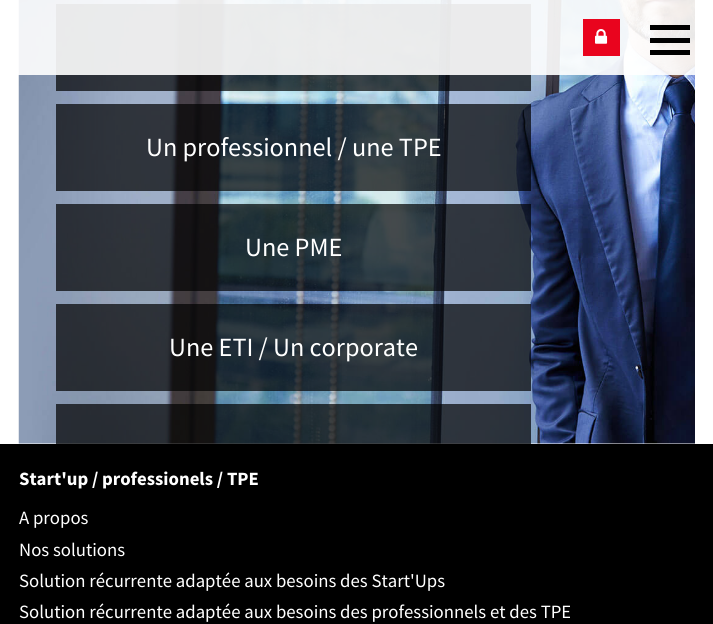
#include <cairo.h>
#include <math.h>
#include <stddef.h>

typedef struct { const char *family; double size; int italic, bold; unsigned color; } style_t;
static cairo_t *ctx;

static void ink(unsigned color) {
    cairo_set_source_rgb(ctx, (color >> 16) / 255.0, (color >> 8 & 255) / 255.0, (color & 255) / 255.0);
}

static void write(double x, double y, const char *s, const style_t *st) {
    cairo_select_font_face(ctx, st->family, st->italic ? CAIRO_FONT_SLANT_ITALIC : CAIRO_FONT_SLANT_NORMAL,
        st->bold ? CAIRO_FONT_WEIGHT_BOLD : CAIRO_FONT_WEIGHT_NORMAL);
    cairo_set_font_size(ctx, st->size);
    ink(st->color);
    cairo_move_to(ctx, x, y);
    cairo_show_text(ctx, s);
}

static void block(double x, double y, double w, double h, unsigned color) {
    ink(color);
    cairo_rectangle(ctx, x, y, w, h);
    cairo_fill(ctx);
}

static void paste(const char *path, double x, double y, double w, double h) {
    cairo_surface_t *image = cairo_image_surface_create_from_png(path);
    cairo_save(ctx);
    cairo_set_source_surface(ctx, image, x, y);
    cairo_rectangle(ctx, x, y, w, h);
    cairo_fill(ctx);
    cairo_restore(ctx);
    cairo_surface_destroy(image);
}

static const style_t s1 = {"Source Sans Pro", 26.25, 0, 0, 0xffffff};
static const style_t s2 = {"Source Sans Pro", 18.75, 0, 1, 0xffffff};
static const style_t s3 = {"Source Sans Pro", 18.75, 0, 0, 0xffffff};

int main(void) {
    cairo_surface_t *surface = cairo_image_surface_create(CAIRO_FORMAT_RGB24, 713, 624);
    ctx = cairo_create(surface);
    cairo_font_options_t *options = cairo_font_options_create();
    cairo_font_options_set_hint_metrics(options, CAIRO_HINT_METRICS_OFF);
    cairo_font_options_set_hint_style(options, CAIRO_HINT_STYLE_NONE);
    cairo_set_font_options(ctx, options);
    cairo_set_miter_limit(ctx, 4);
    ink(0xffffff);
    cairo_paint(ctx);
    paste("pic2.png", 18, 0, 677, 444);
    cairo_set_source_rgba(ctx, 0, 0, 0, 0.7);
    cairo_rectangle(ctx, 56, 4, 475, 87);
    cairo_fill(ctx);
    cairo_set_source_rgba(ctx, 1, 1, 1, 0.9);
    cairo_rectangle(ctx, 18, 0, 677, 75);
    cairo_fill(ctx);
    block(583, 19, 37, 37, 0xe9041e);
    paste("pic1.png", 595, 29, 13, 15);
    block(650, 38, 40, 5, 0x000000);
    block(650, 25, 40, 5, 0x000000);
    block(650, 50, 40, 5, 0x000000);
    cairo_set_source_rgba(ctx, 0, 0, 0, 0.7);
    cairo_rectangle(ctx, 56, 104, 475, 87);
    cairo_fill(ctx);
    write(146, 156, "Un professionnel / une TPE", &s1);
    cairo_set_source_rgba(ctx, 0, 0, 0, 0.7);
    cairo_rectangle(ctx, 56, 204, 475, 87);
    cairo_fill(ctx);
    write(245, 256, "Une PME", &s1);
    cairo_set_source_rgba(ctx, 0, 0, 0, 0.7);
    cairo_rectangle(ctx, 56, 304, 475, 87);
    cairo_fill(ctx);
    write(169, 356, "Une ETI / Un corporate", &s1);
    cairo_set_source_rgba(ctx, 0, 0, 0, 0.7);
    cairo_rectangle(ctx, 56, 404, 475, 40);
    cairo_fill(ctx);
    block(0, 444, 713, 180, 0x000000);
    write(19, 485, "Start'up / professionels / TPE", &s2);
    write(19, 524, "A propos", &s3);
    write(19, 556, "Nos solutions", &s3);
    write(19, 587, "Solution récurrente adaptée aux besoins des Start'Ups", &s3);
    write(19, 618, "Solution récurrente adaptée aux besoins des professionnels et des TPE", &s3);
    cairo_surface_write_to_png(surface, "screenshot.png");
    cairo_font_options_destroy(options);
    cairo_destroy(ctx);
    cairo_surface_destroy(surface);
    return 0;
}
